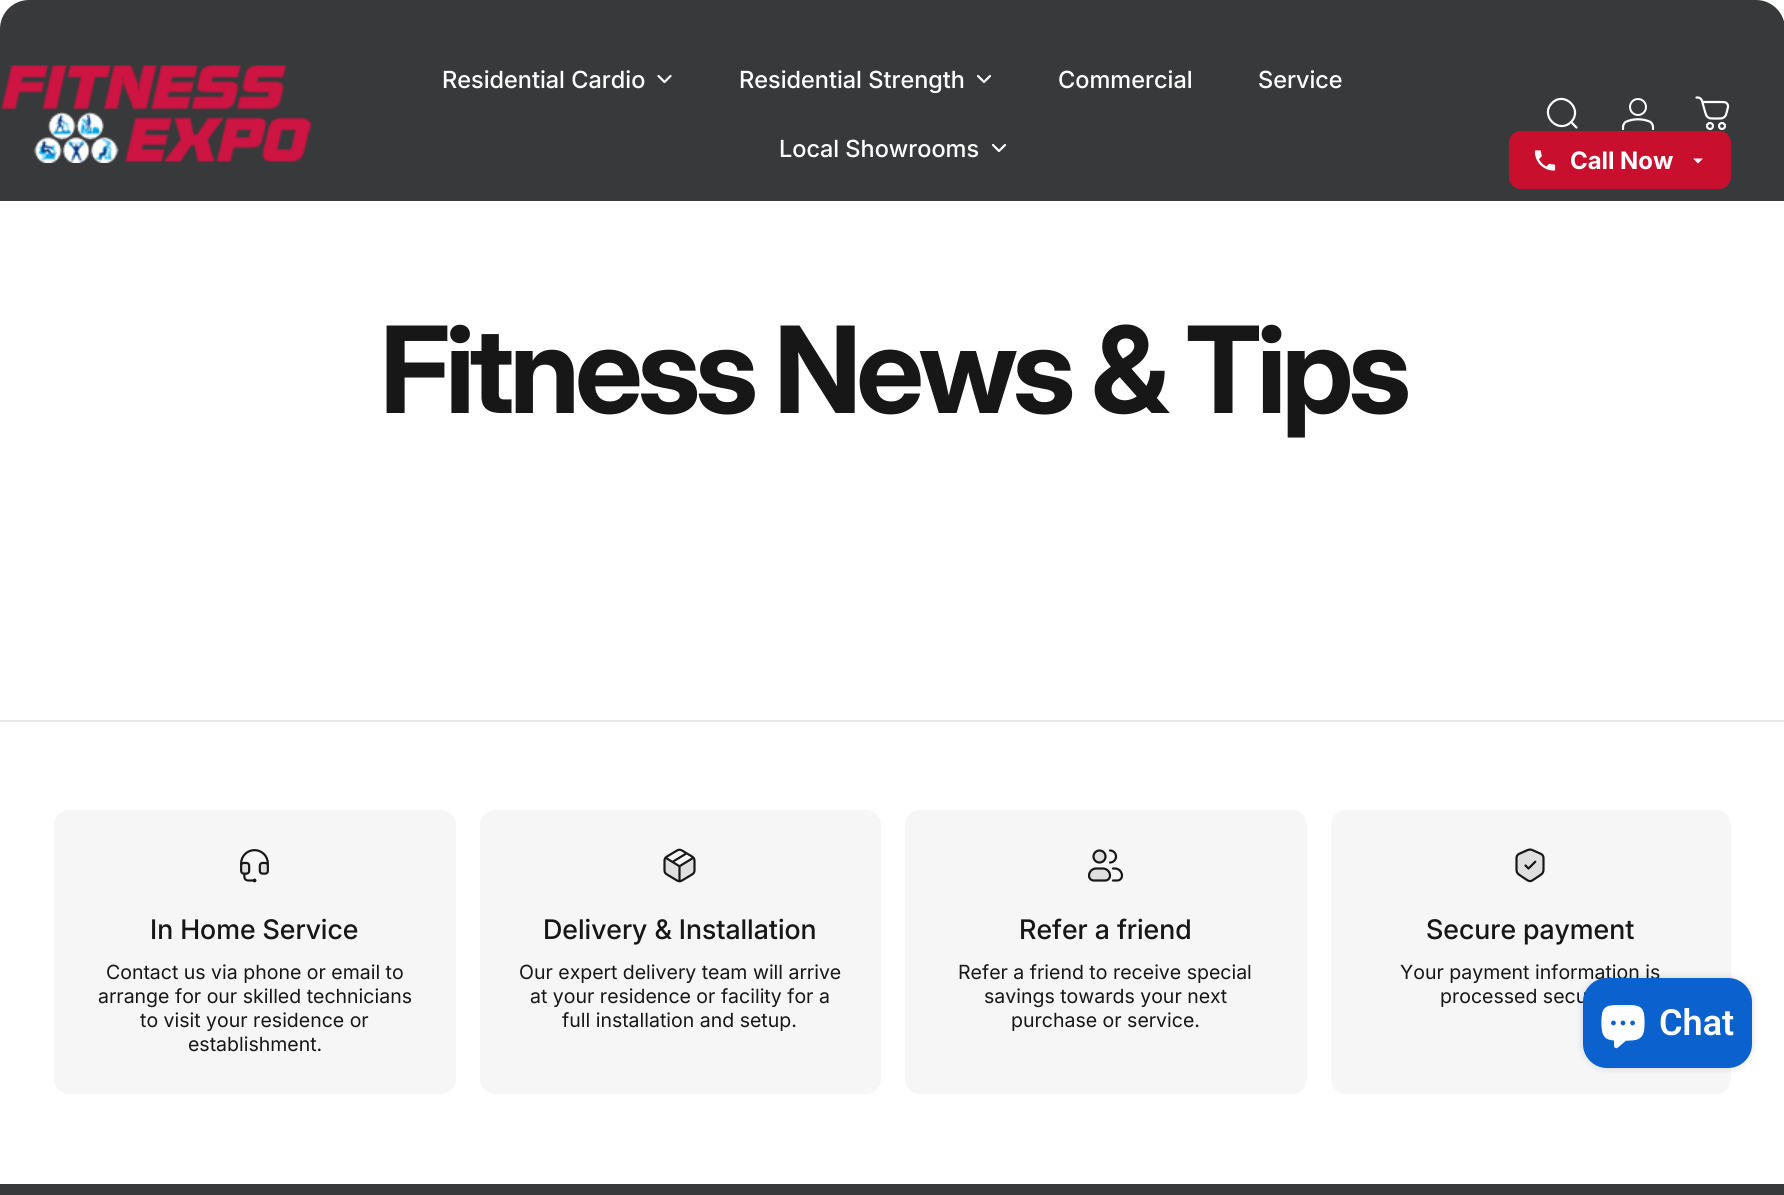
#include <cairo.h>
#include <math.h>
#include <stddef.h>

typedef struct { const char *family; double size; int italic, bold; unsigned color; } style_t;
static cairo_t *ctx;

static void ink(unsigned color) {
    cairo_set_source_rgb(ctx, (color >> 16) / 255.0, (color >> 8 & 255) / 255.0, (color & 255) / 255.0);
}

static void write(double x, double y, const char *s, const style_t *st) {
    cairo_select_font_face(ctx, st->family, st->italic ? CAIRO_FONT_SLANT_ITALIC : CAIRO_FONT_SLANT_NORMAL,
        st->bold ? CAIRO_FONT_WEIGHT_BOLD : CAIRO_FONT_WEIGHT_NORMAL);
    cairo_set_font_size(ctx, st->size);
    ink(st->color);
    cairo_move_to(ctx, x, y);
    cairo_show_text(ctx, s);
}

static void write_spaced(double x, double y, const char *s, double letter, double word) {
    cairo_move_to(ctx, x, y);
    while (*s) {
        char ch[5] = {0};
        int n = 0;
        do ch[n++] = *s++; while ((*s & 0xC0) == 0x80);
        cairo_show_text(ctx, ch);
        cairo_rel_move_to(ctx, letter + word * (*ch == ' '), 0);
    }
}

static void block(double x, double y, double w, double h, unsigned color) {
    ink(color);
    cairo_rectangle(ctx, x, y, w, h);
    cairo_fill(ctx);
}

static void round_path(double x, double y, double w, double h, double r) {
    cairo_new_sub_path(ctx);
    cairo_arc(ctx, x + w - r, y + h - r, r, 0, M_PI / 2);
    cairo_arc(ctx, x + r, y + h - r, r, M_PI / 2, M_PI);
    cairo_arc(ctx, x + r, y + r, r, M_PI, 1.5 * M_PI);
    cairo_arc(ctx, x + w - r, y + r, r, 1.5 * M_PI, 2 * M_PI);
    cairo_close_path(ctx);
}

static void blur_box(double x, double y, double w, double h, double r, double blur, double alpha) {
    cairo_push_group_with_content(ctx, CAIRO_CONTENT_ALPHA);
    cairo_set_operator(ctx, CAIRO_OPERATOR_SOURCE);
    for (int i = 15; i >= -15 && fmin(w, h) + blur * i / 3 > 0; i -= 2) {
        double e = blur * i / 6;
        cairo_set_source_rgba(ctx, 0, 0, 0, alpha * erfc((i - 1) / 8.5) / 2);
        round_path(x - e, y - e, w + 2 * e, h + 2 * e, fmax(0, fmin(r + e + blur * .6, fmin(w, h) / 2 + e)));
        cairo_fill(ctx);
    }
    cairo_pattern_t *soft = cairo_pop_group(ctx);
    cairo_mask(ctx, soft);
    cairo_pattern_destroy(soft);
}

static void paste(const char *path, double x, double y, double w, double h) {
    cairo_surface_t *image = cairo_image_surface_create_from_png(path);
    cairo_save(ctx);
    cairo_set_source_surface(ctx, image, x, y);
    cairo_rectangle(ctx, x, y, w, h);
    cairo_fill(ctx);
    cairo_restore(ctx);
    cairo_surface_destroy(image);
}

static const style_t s1 = {"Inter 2 Medium", 23.6, 0, 0, 0xffffff};
static const style_t s2 = {"Inter 2", 24, 0, 1, 0xffffff};
static const style_t s3 = {"Inter Medium", 27, 0, 0, 0x171717};
static const style_t s4 = {"Inter", 19.5, 0, 0, 0x171717};
static const style_t s5 = {"Roboto SemiBold", 36, 0, 0, 0xffffff};

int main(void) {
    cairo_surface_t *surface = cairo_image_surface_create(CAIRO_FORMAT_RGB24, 1784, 1195);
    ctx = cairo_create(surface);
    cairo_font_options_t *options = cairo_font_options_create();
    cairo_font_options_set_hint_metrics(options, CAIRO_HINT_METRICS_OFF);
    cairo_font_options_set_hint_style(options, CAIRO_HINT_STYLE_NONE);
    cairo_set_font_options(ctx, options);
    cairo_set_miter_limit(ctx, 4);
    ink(0xffffff);
    cairo_paint(ctx);
    ink(0x37393b);
    cairo_new_path(ctx);
    cairo_move_to(ctx, 29, 0);
    cairo_line_to(ctx, 1756, 0);
    cairo_curve_to(ctx, 1772, 0, 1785, 13, 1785, 29);
    cairo_line_to(ctx, 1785, 201);
    cairo_line_to(ctx, 0, 201);
    cairo_line_to(ctx, 0, 29);
    cairo_curve_to(ctx, 0, 13, 13, 0, 29, 0);
    cairo_close_path(ctx);
    cairo_fill(ctx);
    paste("pic1.png", 1, 65, 310, 98);
    write(442, 88, "Residential Cardio", &s1);
    cairo_new_path(ctx);
    cairo_move_to(ctx, 658.5, 76);
    cairo_line_to(ctx, 664.5, 82);
    cairo_line_to(ctx, 670.5, 76);
    cairo_set_line_width(ctx, 2.2);
    cairo_set_line_cap(ctx, CAIRO_LINE_CAP_ROUND);
    cairo_set_line_join(ctx, CAIRO_LINE_JOIN_ROUND);
    cairo_stroke(ctx);
    write(739, 88, "Residential Strength", &s1);
    cairo_new_path(ctx);
    cairo_move_to(ctx, 978, 76);
    cairo_line_to(ctx, 984, 82);
    cairo_line_to(ctx, 990, 76);
    cairo_stroke(ctx);
    write(1058, 88, "Commercial", &s1);
    write(1258, 88, "Service", &s1);
    write(779, 157, "Local Showrooms", &s1);
    cairo_new_path(ctx);
    cairo_move_to(ctx, 993, 145);
    cairo_line_to(ctx, 999, 151);
    cairo_line_to(ctx, 1005, 145);
    cairo_stroke(ctx);
    cairo_new_path(ctx);
    cairo_move_to(ctx, 1576.5, 127.5);
    cairo_line_to(ctx, 1571, 122);
    cairo_move_to(ctx, 1571, 122);
    cairo_curve_to(ctx, 1583.5, 109.5, 1564.5, 90.5, 1552, 103);
    cairo_curve_to(ctx, 1539.5, 115.5, 1558.5, 134.5, 1571, 122);
    cairo_close_path(ctx);
    cairo_set_line_join(ctx, CAIRO_LINE_JOIN_MITER);
    cairo_stroke(ctx);
    paste("pic2.png", 1621, 98, 34, 33);
    paste("pic3.png", 1695, 96, 35, 35);
    ink(0xc8102e);
    round_path(1509, 131, 222, 58, 12);
    cairo_fill(ctx);
    paste("pic4.png", 1534, 150, 22, 21);
    write(1570, 169, "Call Now", &s2);
    cairo_new_path(ctx);
    cairo_move_to(ctx, 1693, 158.5);
    cairo_line_to(ctx, 1698, 163.5);
    cairo_line_to(ctx, 1703, 158.5);
    cairo_close_path(ctx);
    cairo_fill(ctx);
    cairo_select_font_face(ctx, "Inter", CAIRO_FONT_SLANT_NORMAL, CAIRO_FONT_WEIGHT_BOLD);
    cairo_set_font_size(ctx, 120.25);
    ink(0x171717);
    write_spaced(380, 413, "Fitness News & Tips", -4.8, 0);
    block(0, 720, 1784, 2, 0xe8e8e8);
    ink(0xf6f6f6);
    round_path(54, 810, 402, 284, 15);
    cairo_fill(ctx);
    paste("pic5.png", 240, 849, 29, 34);
    write(150, 939, "In Home Service", &s3);
    write(106, 979, "Contact us via phone or email to", &s4);
    write(98, 1003, "arrange for our skilled technicians", &s4);
    write(140, 1027, "to visit your residence or", &s4);
    write(188, 1051, "establishment.", &s4);
    ink(0xf6f6f6);
    round_path(480, 810, 401, 284, 15);
    cairo_fill(ctx);
    paste("pic6.png", 663, 848, 33, 35);
    write(543, 939, "Delivery & Installation", &s3);
    write(519, 979, "Our expert delivery team will arrive", &s4);
    write(530, 1003, "at your residence or facility for a", &s4);
    write(562, 1027, "full installation and setup.", &s4);
    ink(0xf6f6f6);
    round_path(905, 810, 402, 284, 15);
    cairo_fill(ctx);
    paste("pic7.png", 1088, 849, 36, 33);
    write(1019, 939, "Refer a friend", &s3);
    write(958, 979, "Refer a friend to receive special", &s4);
    write(984, 1003, "savings towards your next", &s4);
    write(1011, 1027, "purchase or service.", &s4);
    ink(0xf6f6f6);
    round_path(1331, 810, 400, 284, 15);
    cairo_fill(ctx);
    paste("pic8.png", 1515, 848, 30, 35);
    write(1426, 939, "Secure payment", &s3);
    write(1400, 979, "Your payment information is", &s4);
    write(1440, 1003, "processed secu", &s4);
    block(0, 1184, 1784, 11, 0x37393b);
    ink(0x000000);
    blur_box(1583, 978, 169, 90, 24, 4, 0.15);
    ink(0x0b61cd);
    round_path(1583, 978, 169, 90, 24);
    cairo_fill(ctx);
    paste("pic9.png", 1601, 1005, 44, 44);
    write(1659, 1035, "Chat", &s5);
    cairo_surface_write_to_png(surface, "screenshot.png");
    cairo_font_options_destroy(options);
    cairo_destroy(ctx);
    cairo_surface_destroy(surface);
    return 0;
}
